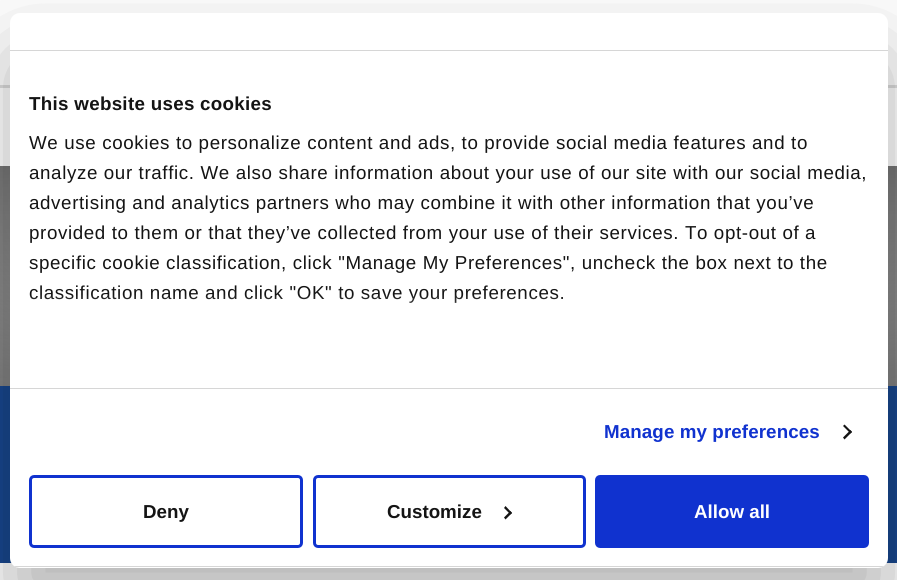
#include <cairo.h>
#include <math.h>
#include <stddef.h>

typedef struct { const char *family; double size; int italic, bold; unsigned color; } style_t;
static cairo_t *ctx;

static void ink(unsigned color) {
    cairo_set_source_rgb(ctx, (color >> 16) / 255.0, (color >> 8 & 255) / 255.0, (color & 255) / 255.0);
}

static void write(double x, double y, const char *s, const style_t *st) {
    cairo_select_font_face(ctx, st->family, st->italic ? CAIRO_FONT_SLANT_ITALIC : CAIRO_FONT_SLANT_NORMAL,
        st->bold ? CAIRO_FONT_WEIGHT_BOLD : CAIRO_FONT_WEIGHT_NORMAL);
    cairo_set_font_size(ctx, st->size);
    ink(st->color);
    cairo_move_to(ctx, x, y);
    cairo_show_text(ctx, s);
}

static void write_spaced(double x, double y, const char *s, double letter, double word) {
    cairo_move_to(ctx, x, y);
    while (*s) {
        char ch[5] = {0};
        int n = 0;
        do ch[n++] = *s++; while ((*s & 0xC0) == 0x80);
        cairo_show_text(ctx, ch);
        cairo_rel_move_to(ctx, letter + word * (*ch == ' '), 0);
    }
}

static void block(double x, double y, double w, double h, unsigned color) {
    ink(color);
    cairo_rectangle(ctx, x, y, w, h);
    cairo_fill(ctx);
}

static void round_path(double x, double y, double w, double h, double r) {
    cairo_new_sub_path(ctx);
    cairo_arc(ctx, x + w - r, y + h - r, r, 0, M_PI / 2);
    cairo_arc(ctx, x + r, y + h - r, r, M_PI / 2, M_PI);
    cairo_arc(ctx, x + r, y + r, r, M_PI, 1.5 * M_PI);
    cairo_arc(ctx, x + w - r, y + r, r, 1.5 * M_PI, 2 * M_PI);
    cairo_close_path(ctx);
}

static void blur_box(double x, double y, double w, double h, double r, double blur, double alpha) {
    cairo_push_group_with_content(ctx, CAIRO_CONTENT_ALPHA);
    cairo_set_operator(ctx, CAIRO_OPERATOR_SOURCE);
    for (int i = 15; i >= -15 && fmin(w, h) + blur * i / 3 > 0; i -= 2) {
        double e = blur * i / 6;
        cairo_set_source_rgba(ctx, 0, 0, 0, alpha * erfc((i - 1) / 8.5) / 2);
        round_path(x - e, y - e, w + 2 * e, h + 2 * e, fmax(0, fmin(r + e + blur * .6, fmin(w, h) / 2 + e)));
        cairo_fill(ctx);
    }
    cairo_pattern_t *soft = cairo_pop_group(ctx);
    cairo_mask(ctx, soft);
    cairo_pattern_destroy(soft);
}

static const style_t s1 = {"Liberation Sans", 18.75, 0, 1, 0x141414};
static const style_t s2 = {"Liberation Sans", 18.75, 0, 1, 0xffffff};

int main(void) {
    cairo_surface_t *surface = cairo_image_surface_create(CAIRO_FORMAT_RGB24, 897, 580);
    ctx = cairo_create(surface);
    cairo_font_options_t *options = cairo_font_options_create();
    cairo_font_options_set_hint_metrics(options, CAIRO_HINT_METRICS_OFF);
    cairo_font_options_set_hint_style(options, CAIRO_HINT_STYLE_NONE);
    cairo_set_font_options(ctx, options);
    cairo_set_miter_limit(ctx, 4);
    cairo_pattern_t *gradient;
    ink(0xffffff);
    cairo_paint(ctx);
    block(0, 85, 897, 3, 0xdddddd);
    gradient = cairo_pattern_create_linear(449, 0, 449, 386);
    cairo_pattern_add_color_stop_rgba(gradient, 0, 0.502, 0.502, 0.502, 1);
    cairo_pattern_add_color_stop_rgba(gradient, 1, 1, 1, 1, 1);
    cairo_set_source(ctx, gradient);
    cairo_pattern_destroy(gradient);
    cairo_rectangle(ctx, 0, 166, 897, 212);
    cairo_fill(ctx);
    gradient = cairo_pattern_create_radial(0, 0, 0, 0, 0, 1);
    cairo_pattern_set_matrix(gradient, &(cairo_matrix_t){1.0 / 635, 0, 0, 1.0 / 273, -1.0 * 449 / 635, -1.0 * 193 / 273});
    cairo_pattern_add_color_stop_rgba(gradient, 0, 0, 0, 0, 0);
    cairo_pattern_add_color_stop_rgba(gradient, 1, 0, 0, 0, 0.5);
    cairo_set_source(ctx, gradient);
    cairo_pattern_destroy(gradient);
    cairo_rectangle(ctx, 0, 166, 897, 220);
    cairo_fill(ctx);
    block(0, 386, 897, 177, 0x18468d);
    ink(0x000000);
    blur_box(10, 53, 878, 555, 10, 42.5, 0.3);
    ink(0xffffff);
    round_path(10, 13, 878, 555, 10);
    cairo_fill(ctx);
    block(10, 50, 878, 1, 0xd6d6d6);
    block(10, 388, 878, 1, 0xd6d6d6);
    cairo_select_font_face(ctx, "Liberation Sans", CAIRO_FONT_SLANT_NORMAL, CAIRO_FONT_WEIGHT_BOLD);
    cairo_set_font_size(ctx, 18.75);
    ink(0x141414);
    write_spaced(29, 110, "This website uses cookies", 0.3, 0);
    cairo_select_font_face(ctx, "Liberation Sans", CAIRO_FONT_SLANT_NORMAL, CAIRO_FONT_WEIGHT_NORMAL);
    write_spaced(29, 149, "We use cookies to personalize content and ads, to provide social media features and to", 0.62, 0);
    write_spaced(29, 179, "analyze our traffic. We also share information about your use of our site with our social media,", 0.62, 0);
    write_spaced(29, 209, "advertising and analytics partners who may combine it with other information that you’ve", 0.62, 0);
    write_spaced(29, 239, "provided to them or that they’ve collected from your use of their services. To opt-out of a", 0.62, 0);
    write_spaced(29, 269, "specific cookie classification, click \"Manage My Preferences\", uncheck the box next to the", 0.62, 0);
    write_spaced(29, 299, "classification name and click \"OK\" to save your preferences.", 0.62, 0);
    gradient = cairo_pattern_create_linear(441, 388, 441, 294);
    cairo_pattern_add_color_stop_rgba(gradient, 0, 1, 1, 1, 1);
    cairo_pattern_add_color_stop_rgba(gradient, 0.5, 1, 1, 1, 0.8);
    cairo_pattern_add_color_stop_rgba(gradient, 1, 1, 1, 1, 0);
    cairo_set_source(ctx, gradient);
    cairo_pattern_destroy(gradient);
    cairo_rectangle(ctx, 30, 295, 533, 8);
    cairo_fill(ctx);
    cairo_select_font_face(ctx, "Liberation Sans", CAIRO_FONT_SLANT_NORMAL, CAIRO_FONT_WEIGHT_BOLD);
    ink(0x1032cf);
    write_spaced(604, 438, "Manage my preferences", 0.1, 0);
    ink(0x141414);
    cairo_new_path(ctx);
    cairo_move_to(ctx, 844.5, 424.5);
    cairo_line_to(ctx, 852, 432);
    cairo_line_to(ctx, 850.5, 433.5);
    cairo_line_to(ctx, 843, 426);
    cairo_close_path(ctx);
    cairo_fill(ctx);
    cairo_new_path(ctx);
    cairo_move_to(ctx, 850.5, 430);
    cairo_line_to(ctx, 852, 432);
    cairo_line_to(ctx, 844.5, 439.5);
    cairo_line_to(ctx, 843, 437.5);
    cairo_close_path(ctx);
    cairo_fill(ctx);
    cairo_save(ctx);
    round_path(10, 13, 878, 555, 10);
    cairo_clip(ctx);
    block(10, 566, 878, 1, 0xd6d6d6);
    cairo_restore(ctx);
    round_path(30.5, 476.5, 271, 70, 3.5);
    ink(0x1032cf);
    cairo_set_line_width(ctx, 3);
    cairo_stroke(ctx);
    write(143, 518, "Deny", &s1);
    round_path(314.5, 476.5, 270, 70, 3.5);
    ink(0x1032cf);
    cairo_stroke(ctx);
    write(387, 518, "Customize", &s1);
    cairo_new_path(ctx);
    cairo_move_to(ctx, 505.5, 506);
    cairo_line_to(ctx, 512, 513);
    cairo_line_to(ctx, 510.5, 514.5);
    cairo_line_to(ctx, 504, 508);
    cairo_close_path(ctx);
    cairo_fill(ctx);
    cairo_new_path(ctx);
    cairo_move_to(ctx, 510.5, 511);
    cairo_line_to(ctx, 512, 513);
    cairo_line_to(ctx, 505.5, 519.5);
    cairo_line_to(ctx, 504, 517.5);
    cairo_close_path(ctx);
    cairo_fill(ctx);
    ink(0x1032cf);
    round_path(596.5, 476.5, 271, 70, 3.5);
    cairo_fill_preserve(ctx);
    cairo_stroke(ctx);
    write(694, 518, "Allow all", &s2);
    cairo_surface_write_to_png(surface, "screenshot.png");
    cairo_font_options_destroy(options);
    cairo_destroy(ctx);
    cairo_surface_destroy(surface);
    return 0;
}
